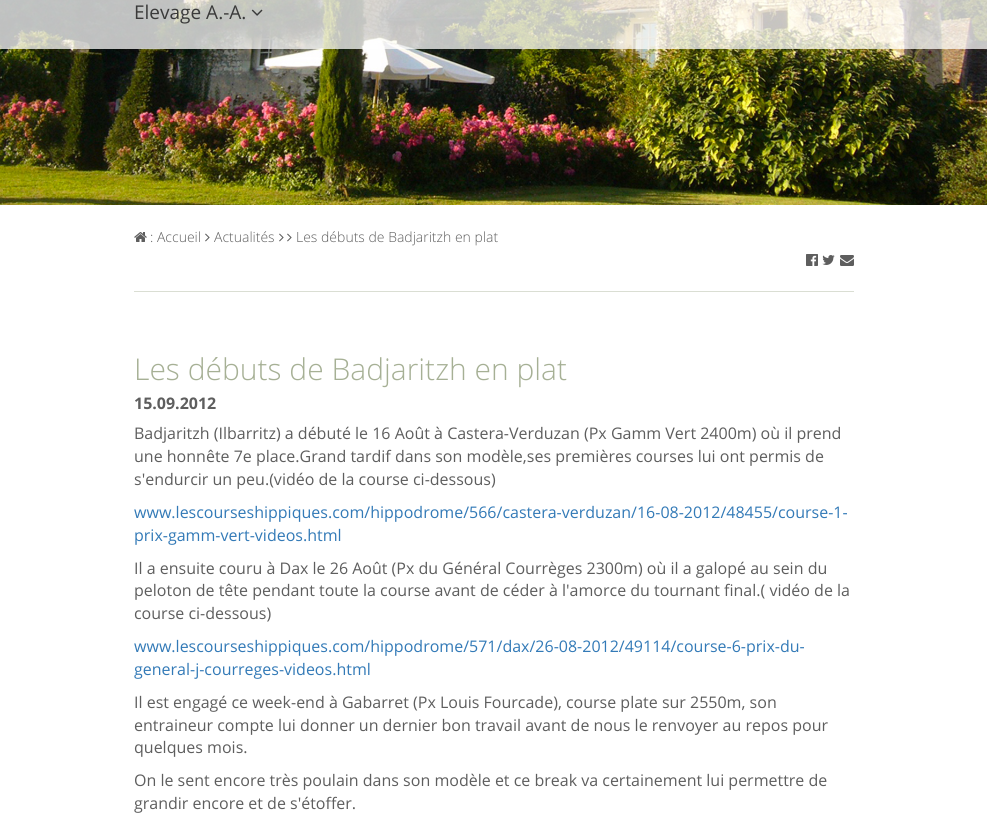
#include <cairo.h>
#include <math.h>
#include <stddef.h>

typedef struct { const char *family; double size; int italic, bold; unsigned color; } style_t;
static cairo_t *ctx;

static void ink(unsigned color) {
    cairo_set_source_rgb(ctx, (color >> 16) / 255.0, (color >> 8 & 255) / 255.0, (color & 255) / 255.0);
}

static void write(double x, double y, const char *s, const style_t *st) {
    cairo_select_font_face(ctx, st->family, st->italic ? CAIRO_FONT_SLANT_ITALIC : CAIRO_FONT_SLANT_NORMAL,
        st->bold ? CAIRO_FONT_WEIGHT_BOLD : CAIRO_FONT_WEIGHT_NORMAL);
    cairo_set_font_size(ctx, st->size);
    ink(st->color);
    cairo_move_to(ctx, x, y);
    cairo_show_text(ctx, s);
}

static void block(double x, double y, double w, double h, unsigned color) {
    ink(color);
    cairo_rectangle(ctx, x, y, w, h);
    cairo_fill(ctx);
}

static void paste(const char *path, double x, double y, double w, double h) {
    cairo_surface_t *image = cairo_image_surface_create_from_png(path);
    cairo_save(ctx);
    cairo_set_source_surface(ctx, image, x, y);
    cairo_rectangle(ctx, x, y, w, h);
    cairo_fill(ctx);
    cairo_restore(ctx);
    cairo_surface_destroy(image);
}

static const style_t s1 = {"Open Sans", 19, 0, 0, 0x3a3a3a};
static const style_t s2 = {"Open Sans Light", 14, 0, 0, 0x5e5e5e};
static const style_t s3 = {"Open Sans Light", 30, 0, 0, 0xa6b095};
static const style_t s4 = {"Open Sans", 16, 0, 1, 0x5e5e5e};
static const style_t s5 = {"Open Sans", 16, 0, 0, 0x5e5e5e};
static const style_t s6 = {"Open Sans", 16, 0, 0, 0x337ab7};

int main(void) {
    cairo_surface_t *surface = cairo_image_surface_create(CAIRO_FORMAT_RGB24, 987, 816);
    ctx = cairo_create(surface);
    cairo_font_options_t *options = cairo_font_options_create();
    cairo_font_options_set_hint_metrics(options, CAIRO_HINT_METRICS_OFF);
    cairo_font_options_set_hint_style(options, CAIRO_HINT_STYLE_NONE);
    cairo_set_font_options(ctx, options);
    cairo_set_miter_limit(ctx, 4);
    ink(0xffffff);
    cairo_paint(ctx);
    paste("pic1.png", 0, 0, 987, 205);
    cairo_set_source_rgba(ctx, 1, 1, 1, 0.74);
    cairo_rectangle(ctx, 0, 0, 987, 49);
    cairo_fill(ctx);
    write(134, 19, "Elevage A.-A.", &s1);
    paste("pic2.png", 251, 9, 12, 7);
    block(134, 291, 720, 1, 0xdaded3);
    paste("pic3.png", 134, 232, 13, 10);
    write(150, 242, ": Accueil", &s2);
    paste("pic4.png", 205, 233, 5, 9);
    write(214, 242, "Actualités", &s2);
    paste("pic4.png", 279, 233, 5, 9);
    paste("pic4.png", 287, 233, 5, 9);
    write(296, 242, "Les débuts de Badjaritzh en plat", &s2);
    paste("pic5.png", 806, 254, 12, 12);
    paste("pic6.png", 822, 255, 13, 10);
    paste("pic7.png", 840, 255, 14, 11);
    write(134, 380, "Les débuts de Badjaritzh en plat", &s3);
    write(134, 409, "15.09.2012", &s4);
    write(134, 439, "Badjaritzh (Ilbarritz) a débuté le 16 Août à Castera-Verduzan (Px Gamm Vert 2400m) où il prend", &s5);
    write(134, 462, "une honnête 7e place.Grand tardif dans son modèle,ses premières courses lui ont permis de", &s5);
    write(134, 485, "s'endurcir un peu.(vidéo de la course ci-dessous)", &s5);
    write(134, 518, "www.lescourseshippiques.com/hippodrome/566/castera-verduzan/16-08-2012/48455/course-1-", &s6);
    write(134, 541, "prix-gamm-vert-videos.html", &s6);
    write(134, 574, "Il a ensuite couru à Dax le 26 Août (Px du Général Courrèges 2300m) où il a galopé au sein du", &s5);
    write(134, 596, "peloton de tête pendant toute la course avant de céder à l'amorce du tournant final.( vidéo de la", &s5);
    write(134, 619, "course ci-dessous)", &s5);
    write(134, 652, "www.lescourseshippiques.com/hippodrome/571/dax/26-08-2012/49114/course-6-prix-du-", &s6);
    write(134, 675, "general-j-courreges-videos.html", &s6);
    write(134, 708, "Il est engagé ce week-end à Gabarret (Px Louis Fourcade), course plate sur 2550m, son", &s5);
    write(134, 731, "entraineur compte lui donner un dernier bon travail avant de nous le renvoyer au repos pour", &s5);
    write(134, 753, "quelques mois.", &s5);
    write(134, 786, "On le sent encore très poulain dans son modèle et ce break va certainement lui permettre de", &s5);
    write(134, 809, "grandir encore et de s'étoffer.", &s5);
    cairo_surface_write_to_png(surface, "screenshot.png");
    cairo_font_options_destroy(options);
    cairo_destroy(ctx);
    cairo_surface_destroy(surface);
    return 0;
}
